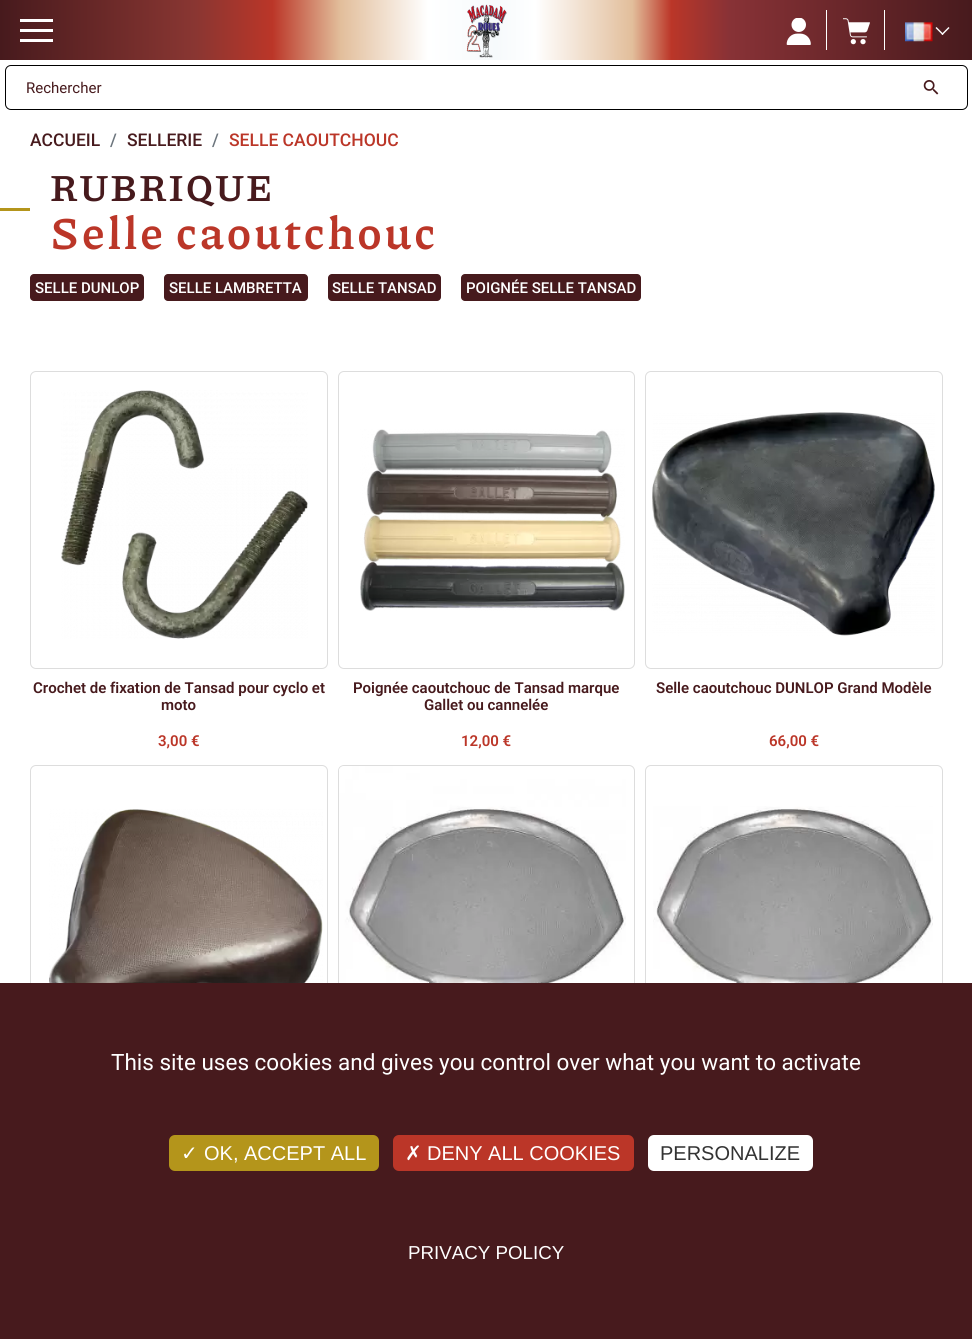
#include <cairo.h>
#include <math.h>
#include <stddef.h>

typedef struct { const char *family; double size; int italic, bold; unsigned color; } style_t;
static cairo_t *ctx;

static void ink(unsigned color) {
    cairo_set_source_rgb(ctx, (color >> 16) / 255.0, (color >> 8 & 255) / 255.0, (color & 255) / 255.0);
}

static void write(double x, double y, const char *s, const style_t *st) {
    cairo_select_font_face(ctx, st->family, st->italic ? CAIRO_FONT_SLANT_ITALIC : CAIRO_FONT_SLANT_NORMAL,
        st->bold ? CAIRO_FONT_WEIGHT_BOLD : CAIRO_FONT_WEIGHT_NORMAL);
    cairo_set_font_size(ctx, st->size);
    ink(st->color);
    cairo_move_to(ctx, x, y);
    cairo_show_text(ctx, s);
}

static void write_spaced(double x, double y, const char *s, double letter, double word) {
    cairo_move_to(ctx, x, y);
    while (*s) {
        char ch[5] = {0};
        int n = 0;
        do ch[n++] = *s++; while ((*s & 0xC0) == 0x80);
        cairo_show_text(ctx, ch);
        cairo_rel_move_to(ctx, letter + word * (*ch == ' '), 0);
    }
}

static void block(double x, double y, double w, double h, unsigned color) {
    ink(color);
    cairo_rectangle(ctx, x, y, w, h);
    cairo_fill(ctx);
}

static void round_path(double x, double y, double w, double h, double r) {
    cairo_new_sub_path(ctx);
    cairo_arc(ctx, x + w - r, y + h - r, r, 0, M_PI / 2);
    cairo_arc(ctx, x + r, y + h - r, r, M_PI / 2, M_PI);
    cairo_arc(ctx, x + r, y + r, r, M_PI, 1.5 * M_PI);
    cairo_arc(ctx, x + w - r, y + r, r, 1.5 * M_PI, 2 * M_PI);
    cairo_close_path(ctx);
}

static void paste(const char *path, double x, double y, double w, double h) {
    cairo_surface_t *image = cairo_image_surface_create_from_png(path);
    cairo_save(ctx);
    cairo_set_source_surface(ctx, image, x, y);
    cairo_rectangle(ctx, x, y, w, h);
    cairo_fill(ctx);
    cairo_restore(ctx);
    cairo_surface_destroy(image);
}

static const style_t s1 = {"Roboto", 15, 0, 0, 0x471a1d};
static const style_t s2 = {"Roboto Medium", 17.5, 0, 0, 0x471a1d};
static const style_t s3 = {"Roboto Medium", 17.5, 0, 0, 0x6c757d};
static const style_t s4 = {"Roboto Medium", 17.5, 0, 0, 0xbb3628};
static const style_t s5 = {"Roboto Medium", 15, 0, 0, 0xffffff};
static const style_t s6 = {"Roboto SemiBold", 15, 0, 0, 0x471a1d};
static const style_t s7 = {"Roboto SemiBold", 15, 0, 0, 0xbb3628};
static const style_t s8 = {"Roboto", 22.5, 0, 0, 0xffffff};
static const style_t s9 = {"DejaVu Sans", 20, 0, 0, 0xffffff};
static const style_t s10 = {"Liberation Sans", 20, 0, 0, 0xffffff};
static const style_t s11 = {"Liberation Sans", 20, 0, 0, 0x333333};
static const style_t s12 = {"Liberation Sans", 18.75, 0, 0, 0xffffff};

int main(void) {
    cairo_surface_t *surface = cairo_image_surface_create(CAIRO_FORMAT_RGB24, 972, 1339);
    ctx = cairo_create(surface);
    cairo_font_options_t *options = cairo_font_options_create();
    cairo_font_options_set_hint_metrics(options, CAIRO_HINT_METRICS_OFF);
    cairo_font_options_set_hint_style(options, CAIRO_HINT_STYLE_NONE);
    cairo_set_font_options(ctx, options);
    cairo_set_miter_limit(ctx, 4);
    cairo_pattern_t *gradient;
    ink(0xffffff);
    cairo_paint(ctx);
    gradient = cairo_pattern_create_linear(0, 30, 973, 30);
    cairo_pattern_add_color_stop_rgba(gradient, 0, 0.278, 0.102, 0.114, 1);
    cairo_pattern_add_color_stop_rgba(gradient, 0.2, 0.537, 0.212, 0.196, 1);
    cairo_pattern_add_color_stop_rgba(gradient, 0.28, 0.733, 0.212, 0.157, 1);
    cairo_pattern_add_color_stop_rgba(gradient, 0.35, 0.886, 0.745, 0.608, 1);
    cairo_pattern_add_color_stop_rgba(gradient, 0.44, 1, 1, 1, 1);
    cairo_pattern_add_color_stop_rgba(gradient, 0.51, 0.965, 0.98, 0.988, 1);
    cairo_pattern_add_color_stop_rgba(gradient, 0.55, 1, 1, 1, 1);
    cairo_pattern_add_color_stop_rgba(gradient, 0.65, 0.886, 0.745, 0.608, 1);
    cairo_pattern_add_color_stop_rgba(gradient, 0.69, 0.733, 0.212, 0.157, 1);
    cairo_pattern_add_color_stop_rgba(gradient, 0.75, 0.533, 0.196, 0.212, 1);
    cairo_pattern_add_color_stop_rgba(gradient, 1, 0.278, 0.102, 0.114, 1);
    cairo_set_source(ctx, gradient);
    cairo_pattern_destroy(gradient);
    cairo_rectangle(ctx, 0, 0, 972, 60);
    cairo_fill(ctx);
    block(20, 19, 33, 3, 0xffffff);
    block(20, 29, 33, 3, 0xffffff);
    block(20, 39, 33, 3, 0xffffff);
    paste("pic1.png", 466, 4, 41, 54);
    paste("pic2.png", 786, 18, 25, 27);
    block(826, 10, 1, 40, 0xffffff);
    paste("pic3.png", 843, 18, 27, 27);
    block(884, 10, 1, 40, 0xffffff);
    paste("pic4.png", 905, 22, 28, 20);
    cairo_new_path(ctx);
    cairo_move_to(ctx, 948.5, 27);
    cairo_line_to(ctx, 949.5, 28);
    cairo_line_to(ctx, 942.5, 35);
    cairo_line_to(ctx, 941.5, 34);
    cairo_close_path(ctx);
    cairo_fill(ctx);
    cairo_new_path(ctx);
    cairo_move_to(ctx, 936.5, 27);
    cairo_line_to(ctx, 943.5, 34);
    cairo_line_to(ctx, 942.5, 35);
    cairo_line_to(ctx, 935.5, 28);
    cairo_close_path(ctx);
    cairo_fill(ctx);
    round_path(5.5, 65.5, 962, 44, 5.5);
    ink(0x000000);
    cairo_set_line_width(ctx, 1);
    cairo_stroke(ctx);
    write(26, 93, "Rechercher", &s1);
    paste("pic5.png", 923, 80, 16, 15);
    write(30, 146, "ACCUEIL", &s2);
    write(110, 146, "/", &s3);
    write(127, 146, "SELLERIE", &s2);
    write(212, 146, "/", &s3);
    write(229, 146, "SELLE CAOUTCHOUC", &s4);
    cairo_select_font_face(ctx, "Piazzolla", CAIRO_FONT_SLANT_NORMAL, CAIRO_FONT_WEIGHT_BOLD);
    cairo_set_font_size(ctx, 37.5);
    ink(0x471a1d);
    write_spaced(50, 201, "RUBRIQUE", 1.75, 0);
    block(0, 208, 30, 3, 0xb4951b);
    cairo_set_font_size(ctx, 45);
    ink(0xbb3628);
    write_spaced(50, 249, "Selle caoutchouc", 2.75, 0);
    ink(0x471a1d);
    round_path(30, 274, 114, 27, 4);
    cairo_fill(ctx);
    write(35, 293, "SELLE DUNLOP", &s5);
    ink(0x471a1d);
    round_path(164, 274, 144, 27, 4);
    cairo_fill(ctx);
    write(169, 293, "SELLE LAMBRETTA", &s5);
    ink(0x471a1d);
    round_path(328, 274, 113, 27, 4);
    cairo_fill(ctx);
    write(332, 293, "SELLE TANSAD", &s5);
    ink(0x471a1d);
    round_path(461, 274, 180, 27, 4);
    cairo_fill(ctx);
    write(466, 293, "POIGNÉE SELLE TANSAD", &s5);
    round_path(30.5, 371.5, 297, 297, 5.5);
    ink(0xdddddd);
    cairo_stroke(ctx);
    paste("pic6.png", 61, 390, 247, 249);
    write(33, 693, "Crochet de fixation de Tansad pour cyclo et", &s6);
    write(161, 710, "moto", &s6);
    write(158, 746, "3,00 €", &s7);
    round_path(338.5, 371.5, 296, 297, 5.5);
    ink(0xdddddd);
    cairo_stroke(ctx);
    paste("pic7.png", 360, 429, 265, 182);
    write(353, 693, "Poignée caoutchouc de Tansad marque", &s6);
    write(424, 710, "Gallet ou cannelée", &s6);
    write(461, 746, "12,00 €", &s7);
    round_path(645.5, 371.5, 297, 297, 5.5);
    ink(0xdddddd);
    cairo_stroke(ctx);
    paste("pic8.png", 652, 412, 283, 224);
    write(656, 693, "Selle caoutchouc DUNLOP Grand Modèle", &s6);
    write(769, 746, "66,00 €", &s7);
    round_path(30.5, 765.5, 297, 297, 5.5);
    ink(0xdddddd);
    cairo_stroke(ctx);
    paste("pic9.png", 49, 809, 274, 174);
    round_path(338.5, 765.5, 296, 297, 5.5);
    cairo_stroke(ctx);
    paste("pic10.png", 339, 766, 287, 217);
    round_path(645.5, 765.5, 297, 297, 5.5);
    cairo_stroke(ctx);
    paste("pic11.png", 653, 806, 280, 177);
    block(0, 983, 972, 356, 0x471a1d);
    write(111, 1070, "This site uses cookies and gives you control over what you want to activate", &s8);
    ink(0xb4951b);
    round_path(169, 1135, 210, 36, 6);
    cairo_fill(ctx);
    write(181, 1160, "✓", &s9);
    write(204, 1160, "OK, ACCEPT ALL", &s10);
    ink(0xbb3628);
    round_path(393, 1135, 241, 36, 6);
    cairo_fill(ctx);
    write(405, 1160, "✗", &s9);
    write(427, 1160, "DENY ALL COOKIES", &s10);
    round_path(648, 1135, 165, 36, 6);
    cairo_fill(ctx);
    write(660, 1160, "PERSONALIZE", &s11);
    write(408, 1259, "PRIVACY POLICY", &s12);
    cairo_surface_write_to_png(surface, "screenshot.png");
    cairo_font_options_destroy(options);
    cairo_destroy(ctx);
    cairo_surface_destroy(surface);
    return 0;
}
